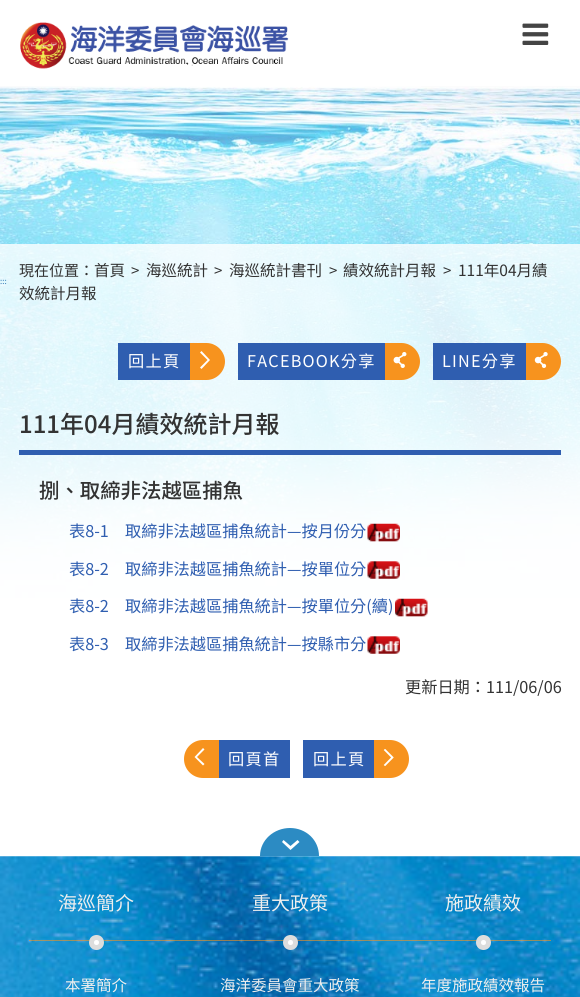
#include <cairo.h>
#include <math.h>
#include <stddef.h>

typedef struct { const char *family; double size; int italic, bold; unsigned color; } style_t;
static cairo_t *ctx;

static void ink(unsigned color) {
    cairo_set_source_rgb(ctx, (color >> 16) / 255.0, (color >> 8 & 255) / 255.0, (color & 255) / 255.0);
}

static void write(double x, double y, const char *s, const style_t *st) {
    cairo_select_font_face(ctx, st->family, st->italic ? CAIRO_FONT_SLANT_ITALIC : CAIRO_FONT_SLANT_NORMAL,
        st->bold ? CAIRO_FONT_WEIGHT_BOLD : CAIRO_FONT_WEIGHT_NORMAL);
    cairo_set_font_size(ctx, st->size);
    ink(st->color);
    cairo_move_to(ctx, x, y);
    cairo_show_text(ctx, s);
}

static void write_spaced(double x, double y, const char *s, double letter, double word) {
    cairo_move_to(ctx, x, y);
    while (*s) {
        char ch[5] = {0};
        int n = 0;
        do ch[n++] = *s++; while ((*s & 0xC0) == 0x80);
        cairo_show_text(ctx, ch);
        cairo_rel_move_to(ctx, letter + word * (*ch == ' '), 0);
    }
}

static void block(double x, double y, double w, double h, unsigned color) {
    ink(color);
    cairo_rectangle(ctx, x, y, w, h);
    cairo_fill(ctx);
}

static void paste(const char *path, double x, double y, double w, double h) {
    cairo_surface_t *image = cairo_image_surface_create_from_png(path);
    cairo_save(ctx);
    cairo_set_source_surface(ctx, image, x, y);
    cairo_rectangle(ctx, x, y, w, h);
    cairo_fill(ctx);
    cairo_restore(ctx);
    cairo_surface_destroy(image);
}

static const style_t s1 = {"Noto Sans TC", 8, 0, 0, 0x337ab7};
static const style_t s2 = {"Noto Sans TC", 15, 0, 0, 0x333333};
static const style_t s3 = {"Noto Sans TC", 15.5, 0, 0, 0x333333};
static const style_t s4 = {"Noto Sans TC Medium", 24, 0, 0, 0x333333};
static const style_t s5 = {"Noto Sans TC Medium", 20.4, 0, 0, 0x333333};
static const style_t s6 = {"Noto Sans TC", 16.2, 0, 0, 0x2f5eb0};
static const style_t s7 = {"Noto Sans TC", 16.2, 0, 0, 0x333333};
static const style_t s8 = {"Noto Sans TC", 19, 0, 0, 0xeeeeee};
static const style_t s9 = {"Noto Sans TC", 15.5, 0, 0, 0xeeeeee};

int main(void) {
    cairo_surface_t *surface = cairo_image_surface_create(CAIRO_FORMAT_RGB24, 580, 997);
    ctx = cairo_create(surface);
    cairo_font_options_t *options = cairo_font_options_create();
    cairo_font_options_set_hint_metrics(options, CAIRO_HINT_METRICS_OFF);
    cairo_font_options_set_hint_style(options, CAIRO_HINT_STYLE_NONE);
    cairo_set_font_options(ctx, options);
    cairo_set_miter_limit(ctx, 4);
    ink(0xffffff);
    cairo_paint(ctx);
    paste("pic1.png", 0, 86, 580, 512);
    paste("pic2.png", 20, 22, 269, 47);
    paste("pic3.png", 522, 23, 27, 22);
    cairo_set_source_rgba(ctx, 1, 1, 1, 0.8);
    cairo_rectangle(ctx, 0, 244, 580, 354);
    cairo_fill(ctx);
    write(0, 284, ":::", &s1);
    write(19, 276, "現在位置：", &s2);
    write(94, 276, "首頁", &s3);
    write(131, 276, ">", &s2);
    write(146, 276, "海巡統計", &s3);
    write(214, 276, ">", &s2);
    write(229, 276, "海巡統計書刊", &s3);
    write(329, 276, ">", &s2);
    write(343, 276, "績效統計月報", &s3);
    write(443, 276, ">", &s2);
    write(458, 276, "111年04月績", &s3);
    write(19, 299, "效統計月報", &s3);
    block(118, 343, 72, 37, 0x2f5eb0);
    cairo_set_font_size(ctx, 16.2);
    ink(0xffffff);
    write_spaced(128, 367, "回上頁", 1.25, 0);
    ink(0xf7931e);
    cairo_new_path(ctx);
    cairo_move_to(ctx, 190, 343);
    cairo_line_to(ctx, 206.5, 343);
    cairo_curve_to(ctx, 216.5, 343, 225, 351.5, 225, 361.5);
    cairo_curve_to(ctx, 225, 371.5, 216.5, 380, 206.5, 380);
    cairo_line_to(ctx, 190, 380);
    cairo_close_path(ctx);
    cairo_fill(ctx);
    ink(0xffffff);
    cairo_new_path(ctx);
    cairo_move_to(ctx, 201.5, 369);
    cairo_line_to(ctx, 200, 367.5);
    cairo_line_to(ctx, 207.5, 360);
    cairo_line_to(ctx, 200, 352.5);
    cairo_line_to(ctx, 201.5, 351);
    cairo_line_to(ctx, 210, 360);
    cairo_close_path(ctx);
    cairo_fill(ctx);
    block(238, 343, 147, 37, 0x2f5eb0);
    ink(0xffffff);
    write_spaced(247, 367, "FACEBOOK分享", 1.25, 0);
    ink(0xf7931e);
    cairo_new_path(ctx);
    cairo_move_to(ctx, 385, 343);
    cairo_line_to(ctx, 401.5, 343);
    cairo_curve_to(ctx, 411.5, 343, 420, 351.5, 420, 361.5);
    cairo_curve_to(ctx, 420, 371.5, 411.5, 380, 401.5, 380);
    cairo_line_to(ctx, 385, 380);
    cairo_close_path(ctx);
    cairo_fill(ctx);
    paste("pic4.png", 393, 352, 14, 16);
    block(433, 343, 93, 37, 0x2f5eb0);
    ink(0xffffff);
    write_spaced(442, 367, "LINE分享", 1.25, 0);
    ink(0xf7931e);
    cairo_new_path(ctx);
    cairo_move_to(ctx, 526, 343);
    cairo_line_to(ctx, 542.5, 343);
    cairo_curve_to(ctx, 552.5, 343, 561, 351.5, 561, 361.5);
    cairo_curve_to(ctx, 561, 371.5, 552.5, 380, 542.5, 380);
    cairo_line_to(ctx, 526, 380);
    cairo_close_path(ctx);
    cairo_fill(ctx);
    paste("pic5.png", 534, 352, 14, 16);
    block(19, 450, 542, 5, 0x2f5eb0);
    write(19, 433, "111年04月績效統計月報", &s4);
    write(39, 498, "捌、取締非法越區捕魚", &s5);
    write(69, 537, "表8-1　取締非法越區捕魚統計—按月份分", &s6);
    paste("pic6.png", 367, 523, 33, 19);
    write(69, 575, "表8-2　取締非法越區捕魚統計—按單位分", &s6);
    paste("pic7.png", 367, 561, 33, 18);
    write(69, 612, "表8-2　取締非法越區捕魚統計—按單位分(續)", &s6);
    paste("pic8.png", 395, 598, 33, 19);
    write(69, 650, "表8-3　取締非法越區捕魚統計—按縣市分", &s6);
    paste("pic9.png", 367, 636, 33, 18);
    write(405, 693, "更新日期：111/06/06", &s7);
    ink(0xf7931e);
    cairo_new_path(ctx);
    cairo_move_to(ctx, 203, 740);
    cairo_line_to(ctx, 219, 740);
    cairo_line_to(ctx, 219, 778);
    cairo_line_to(ctx, 203, 778);
    cairo_curve_to(ctx, 192.5, 778, 184, 769.5, 184, 759);
    cairo_curve_to(ctx, 184, 748.5, 192.5, 740, 203, 740);
    cairo_close_path(ctx);
    cairo_fill(ctx);
    ink(0xffffff);
    cairo_new_path(ctx);
    cairo_move_to(ctx, 203, 748);
    cairo_line_to(ctx, 204.5, 749.5);
    cairo_line_to(ctx, 197, 757);
    cairo_line_to(ctx, 204.5, 764);
    cairo_line_to(ctx, 203, 765.5);
    cairo_line_to(ctx, 194.5, 757);
    cairo_close_path(ctx);
    cairo_fill(ctx);
    block(219, 740, 71, 38, 0x2f5eb0);
    ink(0xffffff);
    write_spaced(228, 765, "回頁首", 1.25, 0);
    block(303, 740, 71, 38, 0x2f5eb0);
    ink(0xffffff);
    write_spaced(313, 765, "回上頁", 1.25, 0);
    ink(0xf7931e);
    cairo_new_path(ctx);
    cairo_move_to(ctx, 374, 740);
    cairo_line_to(ctx, 390, 740);
    cairo_curve_to(ctx, 400.5, 740, 409, 748.5, 409, 759);
    cairo_curve_to(ctx, 409, 769.5, 400.5, 778, 390, 778);
    cairo_line_to(ctx, 374, 778);
    cairo_close_path(ctx);
    cairo_fill(ctx);
    paste("pic10.png", 383, 749, 11, 17);
    ink(0x2c8bc3);
    cairo_new_path(ctx);
    cairo_move_to(ctx, 290, 828);
    cairo_curve_to(ctx, 274, 828, 260, 840, 260, 856);
    cairo_line_to(ctx, 319, 856);
    cairo_curve_to(ctx, 319, 840, 306, 828, 290, 828);
    cairo_close_path(ctx);
    cairo_fill(ctx);
    ink(0xffffff);
    cairo_new_path(ctx);
    cairo_move_to(ctx, 297.5, 840);
    cairo_line_to(ctx, 290.5, 846);
    cairo_line_to(ctx, 283.5, 840);
    cairo_line_to(ctx, 282, 842);
    cairo_line_to(ctx, 290.5, 850);
    cairo_line_to(ctx, 299.5, 842);
    cairo_close_path(ctx);
    cairo_fill(ctx);
    paste("pic11.png", 0, 856, 580, 141);
    write(58, 910, "海巡簡介", &s8);
    cairo_set_source_rgba(ctx, 0.969, 0.576, 0.118, 0.6);
    cairo_rectangle(ctx, 29, 940, 522, 1);
    cairo_fill(ctx);
    ink(0xffffff);
    cairo_arc(ctx, 96.5, 942.5, 5, 0, 2 * M_PI);
    cairo_fill_preserve(ctx);
    ink(0xdddddd);
    cairo_set_line_width(ctx, 5);
    cairo_stroke(ctx);
    write(65, 991, "本署簡介", &s9);
    write(252, 910, "重大政策", &s8);
    ink(0xffffff);
    cairo_new_path(ctx);
    cairo_arc(ctx, 290.5, 942.5, 5, 0, 2 * M_PI);
    cairo_fill_preserve(ctx);
    ink(0xdddddd);
    cairo_stroke(ctx);
    write(220, 991, "海洋委員會重大政策", &s9);
    write(445, 910, "施政績效", &s8);
    ink(0xffffff);
    cairo_new_path(ctx);
    cairo_arc(ctx, 483.5, 942.5, 5, 0, 2 * M_PI);
    cairo_fill_preserve(ctx);
    ink(0xdddddd);
    cairo_stroke(ctx);
    write(421, 991, "年度施政績效報告", &s9);
    cairo_surface_write_to_png(surface, "screenshot.png");
    cairo_font_options_destroy(options);
    cairo_destroy(ctx);
    cairo_surface_destroy(surface);
    return 0;
}
